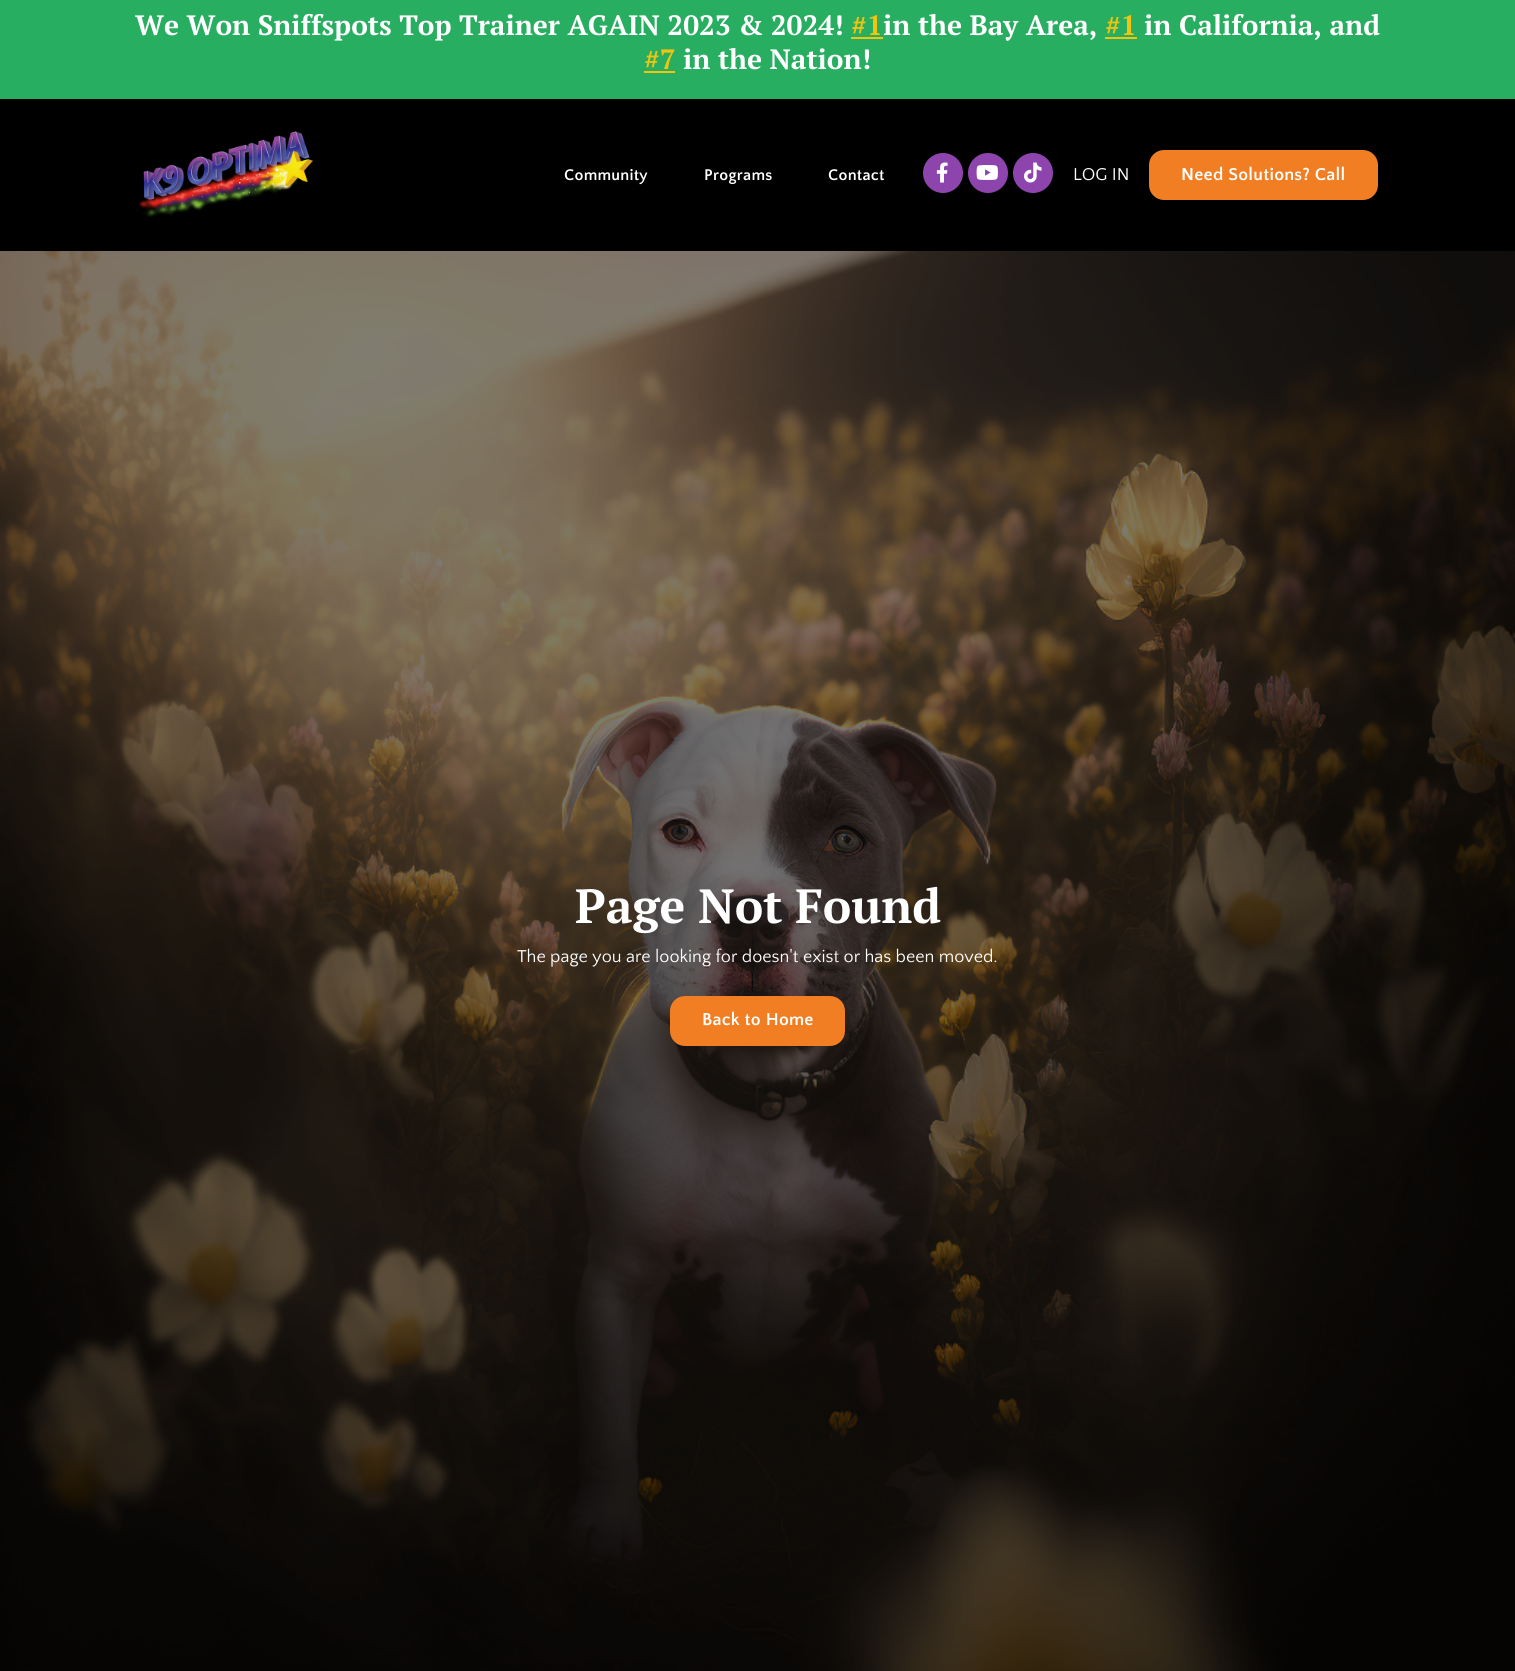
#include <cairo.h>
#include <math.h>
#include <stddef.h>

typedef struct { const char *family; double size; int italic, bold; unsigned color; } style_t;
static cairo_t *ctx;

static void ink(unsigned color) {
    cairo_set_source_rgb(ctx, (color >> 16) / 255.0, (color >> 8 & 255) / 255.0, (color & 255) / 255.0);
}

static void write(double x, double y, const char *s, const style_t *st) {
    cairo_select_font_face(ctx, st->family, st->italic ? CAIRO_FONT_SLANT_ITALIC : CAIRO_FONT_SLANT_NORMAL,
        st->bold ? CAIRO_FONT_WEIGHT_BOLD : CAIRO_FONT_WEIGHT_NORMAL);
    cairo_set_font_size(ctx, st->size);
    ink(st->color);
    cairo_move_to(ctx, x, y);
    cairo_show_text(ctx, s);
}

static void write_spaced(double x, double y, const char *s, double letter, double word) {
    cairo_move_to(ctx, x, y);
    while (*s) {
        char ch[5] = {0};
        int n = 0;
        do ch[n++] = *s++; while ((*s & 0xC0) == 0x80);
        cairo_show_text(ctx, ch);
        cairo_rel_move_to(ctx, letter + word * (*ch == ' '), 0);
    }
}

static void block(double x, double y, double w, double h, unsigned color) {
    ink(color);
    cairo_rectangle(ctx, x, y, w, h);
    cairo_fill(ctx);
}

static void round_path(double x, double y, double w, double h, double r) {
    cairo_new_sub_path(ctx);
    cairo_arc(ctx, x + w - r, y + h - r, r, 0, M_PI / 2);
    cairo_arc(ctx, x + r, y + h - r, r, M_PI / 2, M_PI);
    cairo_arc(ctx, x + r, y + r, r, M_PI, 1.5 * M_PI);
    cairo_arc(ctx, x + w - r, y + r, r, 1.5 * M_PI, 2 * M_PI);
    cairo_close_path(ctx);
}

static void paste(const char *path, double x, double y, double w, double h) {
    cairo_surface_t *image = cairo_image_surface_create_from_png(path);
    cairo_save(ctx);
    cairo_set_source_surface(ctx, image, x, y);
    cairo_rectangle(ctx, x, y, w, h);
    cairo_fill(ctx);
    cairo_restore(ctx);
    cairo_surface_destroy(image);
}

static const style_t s1 = {"PT Serif", 28, 0, 1, 0xffffff};
static const style_t s2 = {"PT Serif", 28, 0, 1, 0xf1c40f};
static const style_t s3 = {"Quattrocento Sans", 18, 0, 0, 0xffffff};
static const style_t s4 = {"PT Serif", 48, 0, 1, 0xffffff};

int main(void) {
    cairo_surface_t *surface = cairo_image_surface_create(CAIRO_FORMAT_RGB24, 1515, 1671);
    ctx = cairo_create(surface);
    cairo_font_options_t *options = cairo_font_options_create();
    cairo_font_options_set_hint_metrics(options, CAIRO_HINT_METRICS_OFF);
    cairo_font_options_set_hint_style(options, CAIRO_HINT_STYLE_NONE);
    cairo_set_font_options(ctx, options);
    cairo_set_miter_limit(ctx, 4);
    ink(0x000000);
    cairo_paint(ctx);
    block(0, 0, 1515, 99, 0x27ae60);
    write(135, 35, "We Won Sniffspots Top Trainer AGAIN 2023 & 2024!", &s1);
    write(851, 35, "#1", &s2);
    write(883, 35, "in the Bay Area,", &s1);
    block(851, 37, 32, 2, 0xf1c40f);
    write(1105, 35, "#1", &s2);
    block(1105, 37, 32, 2, 0xf1c40f);
    write(1144, 35, "in California, and", &s1);
    write(644, 69, "#7", &s2);
    block(644, 71, 31, 2, 0xf1c40f);
    write(683, 69, "in the Nation!", &s1);
    paste("pic1.png", 136, 131, 177, 87);
    cairo_select_font_face(ctx, "Quattrocento Sans", CAIRO_FONT_SLANT_NORMAL, CAIRO_FONT_WEIGHT_BOLD);
    cairo_set_font_size(ctx, 16.25);
    write_spaced(564, 180, "Community", 0.25, 0);
    write_spaced(704, 180, "Programs", 0.25, 0);
    write_spaced(828, 180, "Contact", 0.25, 0);
    ink(0x8e44ad);
    cairo_new_path(ctx);
    cairo_arc(ctx, 943, 173, 20, 0, 2 * M_PI);
    cairo_fill(ctx);
    paste("pic2.png", 936, 162, 12, 21);
    cairo_arc(ctx, 988, 173, 20, 0, 2 * M_PI);
    cairo_fill(ctx);
    paste("pic3.png", 976, 165, 22, 15);
    cairo_arc(ctx, 1033, 173, 20, 0, 2 * M_PI);
    cairo_fill(ctx);
    paste("pic4.png", 1024, 162, 18, 21);
    write(1073, 180, "LOG IN", &s3);
    ink(0xf17e23);
    round_path(1150, 151, 227, 48, 14);
    cairo_fill_preserve(ctx);
    cairo_stroke(ctx);
    cairo_select_font_face(ctx, "Quattrocento Sans", CAIRO_FONT_SLANT_NORMAL, CAIRO_FONT_WEIGHT_BOLD);
    ink(0xffffff);
    write_spaced(1181, 180, "Need Solutions? Call", 0.25, 0);
    paste("pic5.png", 0, 251, 1515, 1420);
    write(575, 923, "Page Not Found", &s4);
    write(517, 962, "The page you are looking for doesn't exist or has been moved.", &s3);
    ink(0xf17e23);
    round_path(671, 997, 173, 48, 14);
    cairo_fill_preserve(ctx);
    cairo_stroke(ctx);
    cairo_select_font_face(ctx, "Quattrocento Sans", CAIRO_FONT_SLANT_NORMAL, CAIRO_FONT_WEIGHT_BOLD);
    ink(0xffffff);
    write_spaced(702, 1025, "Back to Home", 0.25, 0);
    cairo_surface_write_to_png(surface, "screenshot.png");
    cairo_font_options_destroy(options);
    cairo_destroy(ctx);
    cairo_surface_destroy(surface);
    return 0;
}
